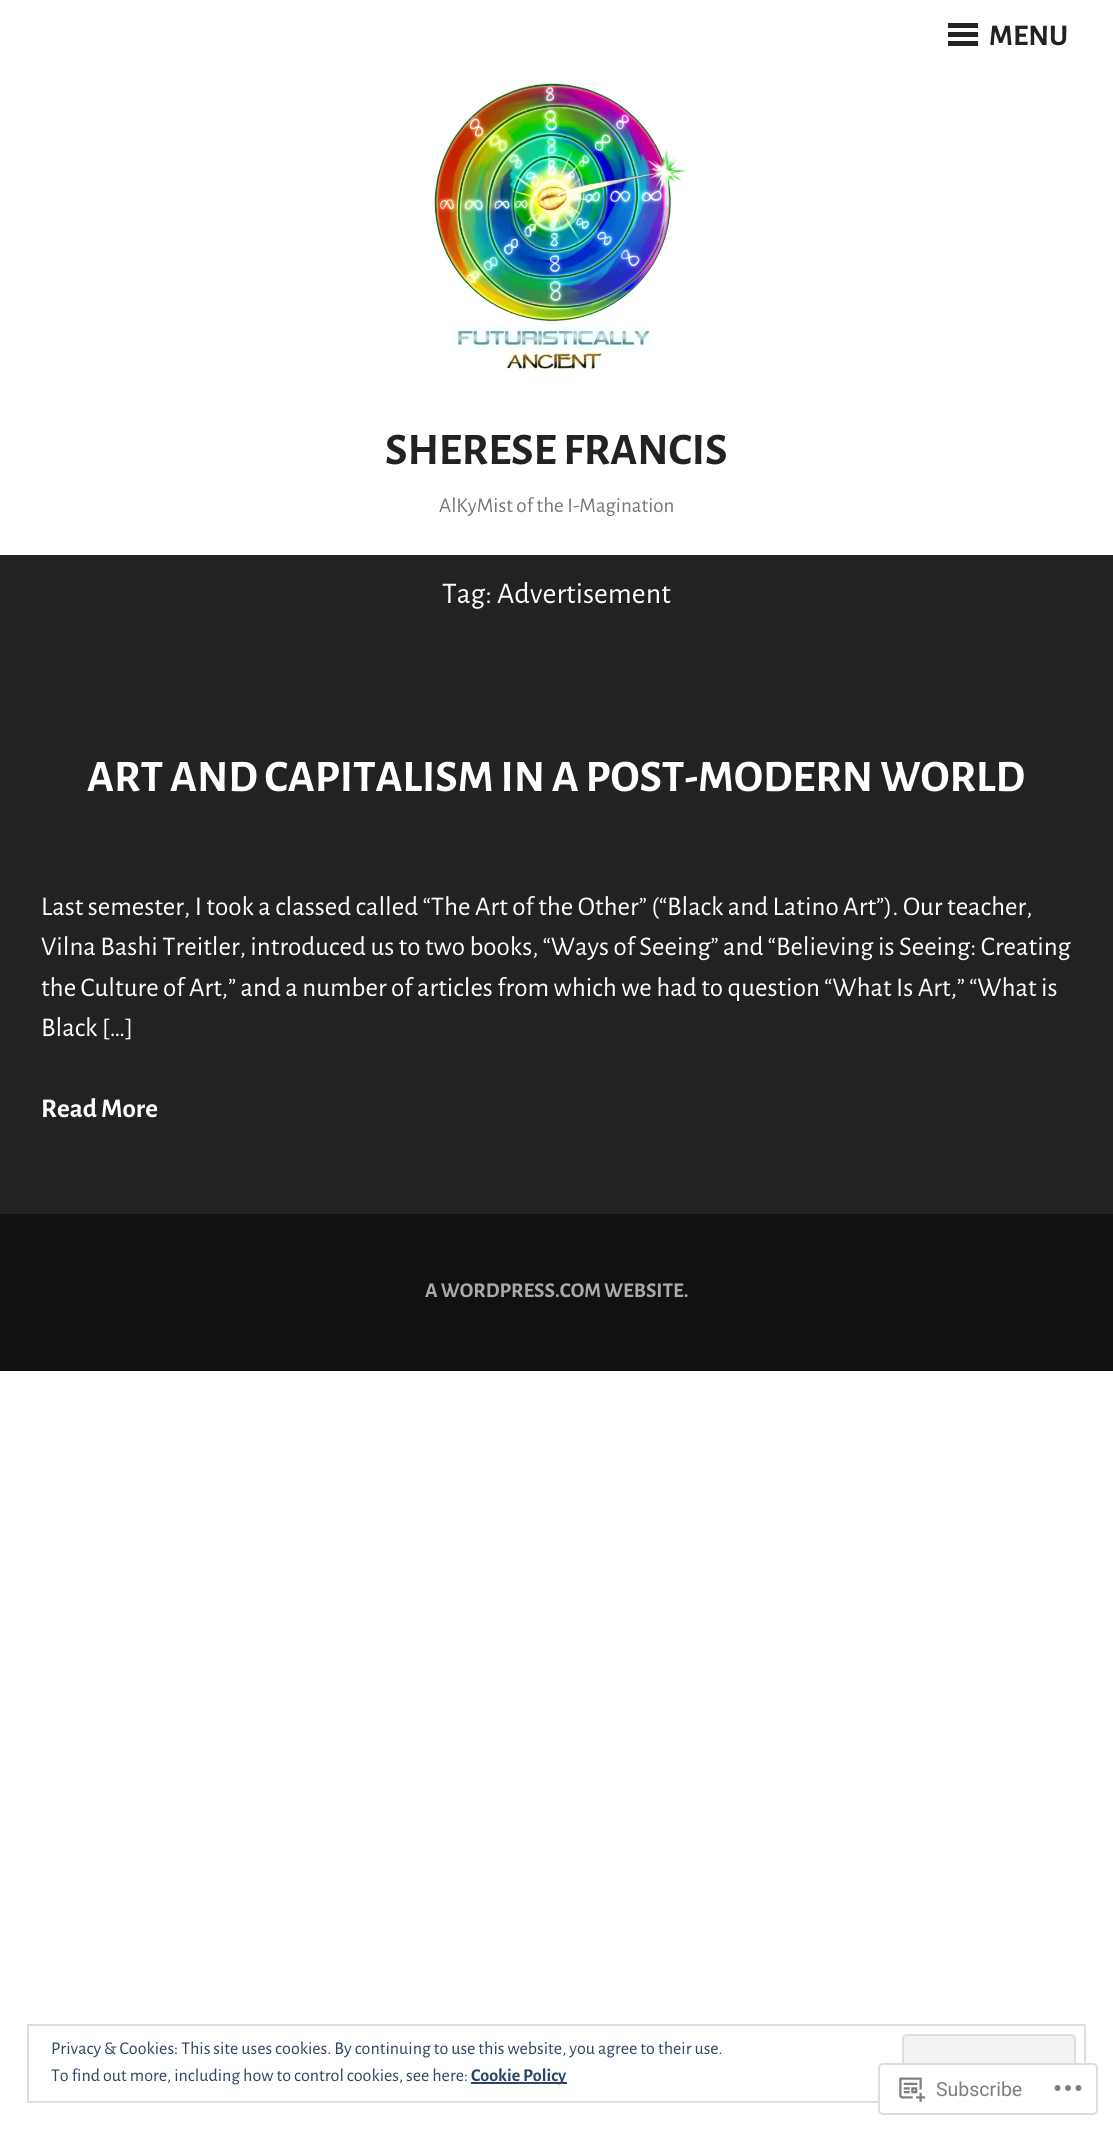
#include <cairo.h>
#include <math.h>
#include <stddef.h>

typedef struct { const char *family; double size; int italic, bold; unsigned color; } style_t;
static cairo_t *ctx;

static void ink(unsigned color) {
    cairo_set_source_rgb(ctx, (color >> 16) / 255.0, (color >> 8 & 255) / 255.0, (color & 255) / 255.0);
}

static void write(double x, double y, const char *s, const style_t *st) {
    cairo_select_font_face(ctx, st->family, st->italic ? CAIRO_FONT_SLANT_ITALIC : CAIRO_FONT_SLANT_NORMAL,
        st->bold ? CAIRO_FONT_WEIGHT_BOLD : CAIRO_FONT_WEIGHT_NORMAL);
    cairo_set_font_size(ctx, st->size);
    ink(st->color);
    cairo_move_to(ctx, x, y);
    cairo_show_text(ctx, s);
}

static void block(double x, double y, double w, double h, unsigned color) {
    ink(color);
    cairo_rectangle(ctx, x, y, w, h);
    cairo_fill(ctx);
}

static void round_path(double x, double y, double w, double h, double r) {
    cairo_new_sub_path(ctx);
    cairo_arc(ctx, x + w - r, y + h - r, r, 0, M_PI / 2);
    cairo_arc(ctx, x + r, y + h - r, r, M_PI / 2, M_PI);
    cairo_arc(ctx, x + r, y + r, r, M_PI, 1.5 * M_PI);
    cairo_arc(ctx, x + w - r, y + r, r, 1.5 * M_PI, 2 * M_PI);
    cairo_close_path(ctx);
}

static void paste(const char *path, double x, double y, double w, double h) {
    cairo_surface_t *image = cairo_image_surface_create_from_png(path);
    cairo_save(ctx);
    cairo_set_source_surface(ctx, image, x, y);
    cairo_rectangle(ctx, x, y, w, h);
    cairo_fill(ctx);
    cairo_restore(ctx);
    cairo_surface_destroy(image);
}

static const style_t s1 = {"Alegreya Sans", 30, 0, 1, 0x222222};
static const style_t s2 = {"Alegreya Sans", 45, 0, 1, 0x222222};
static const style_t s3 = {"Alegreya Sans", 21, 0, 0, 0x767676};
static const style_t s4 = {"Alegreya Sans", 30, 0, 0, 0xffffff};
static const style_t s5 = {"Alegreya Sans", 45, 0, 1, 0xffffff};
static const style_t s6 = {"Alegreya Sans", 27, 0, 0, 0xffffff};
static const style_t s7 = {"Alegreya Sans", 27, 0, 1, 0xffffff};
static const style_t s8 = {"Alegreya Sans", 21, 0, 1, 0xaaaaaa};
static const style_t s9 = {"Alegreya Sans", 18, 0, 0, 0x2e4467};
static const style_t s10 = {"Alegreya Sans", 18, 0, 1, 0x2e4467};
static const style_t s11 = {"Roboto", 19.5, 0, 0, 0x7b7f84};

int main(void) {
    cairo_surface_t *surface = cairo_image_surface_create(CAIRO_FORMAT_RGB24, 1113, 2130);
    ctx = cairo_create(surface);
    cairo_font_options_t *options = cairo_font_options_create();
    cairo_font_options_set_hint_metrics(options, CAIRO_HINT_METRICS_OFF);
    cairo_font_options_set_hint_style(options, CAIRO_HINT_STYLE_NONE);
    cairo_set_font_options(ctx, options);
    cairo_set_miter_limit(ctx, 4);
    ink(0xffffff);
    cairo_paint(ctx);
    block(948, 32, 30, 5, 0x222222);
    block(948, 23, 30, 5, 0x222222);
    block(948, 41, 30, 5, 0x222222);
    write(989, 45, "MENU", &s1);
    paste("pic1.png", 434, 82, 253, 291);
    write(385, 464, "SHERESE FRANCIS", &s2);
    write(439, 512, "AlKyMist of the I-Magination", &s3);
    block(0, 555, 1113, 80, 0x222222);
    block(0, 635, 1113, 1, 0x252525);
    write(442, 603, "Tag: Advertisement", &s4);
    block(0, 636, 1113, 576, 0x222222);
    block(0, 1212, 1113, 2, 0x252525);
    write(87, 791, "ART AND CAPITALISM IN A POST-MODERN WORLD", &s5);
    write(41, 915, "Last semester, I took a classed called “The Art of the Other” (“Black and Latino Art”). Our teacher,", &s6);
    write(41, 955, "Vilna Bashi Treitler, introduced us to two books, “Ways of Seeing” and “Believing is Seeing: Creating", &s6);
    write(41, 996, "the Culture of Art,” and a number of articles from which we had to question “What Is Art,” “What is", &s6);
    write(41, 1036, "Black […]", &s6);
    write(41, 1117, "Read More", &s7);
    block(0, 1214, 1113, 157, 0x111111);
    write(425, 1297, "A WORDPRESS.COM WEBSITE.", &s8);
    cairo_rectangle(ctx, 28, 2025, 1057, 77);
    ink(0xdedede);
    cairo_stroke(ctx);
    write(51, 2054, "Privacy & Cookies: This site uses cookies. By continuing to use this website, you agree to their use.", &s9);
    ink(0xf3f3f3);
    round_path(903, 2035, 172, 57, 4);
    cairo_fill_preserve(ctx);
    ink(0xdedede);
    cairo_stroke(ctx);
    write(51, 2081, "To find out more, including how to control cookies, see here:", &s9);
    block(471, 2082, 96, 2, 0x2e4467);
    write(471, 2081, "Cookie Policy", &s10);
    cairo_set_source_rgba(ctx, 1, 1, 1, 0.98);
    round_path(878, 2063, 220, 52, 5);
    cairo_fill(ctx);
    round_path(879, 2064, 218, 50, 4);
    cairo_set_source_rgba(ctx, 0.863, 0.863, 0.871, 0.98);
    cairo_stroke(ctx);
    paste("pic2.png", 899, 2077, 27, 25);
    write(936, 2096, "Subscribe", &s11);
    paste("pic3.png", 1054, 2085, 28, 6);
    cairo_surface_write_to_png(surface, "screenshot.png");
    cairo_font_options_destroy(options);
    cairo_destroy(ctx);
    cairo_surface_destroy(surface);
    return 0;
}
